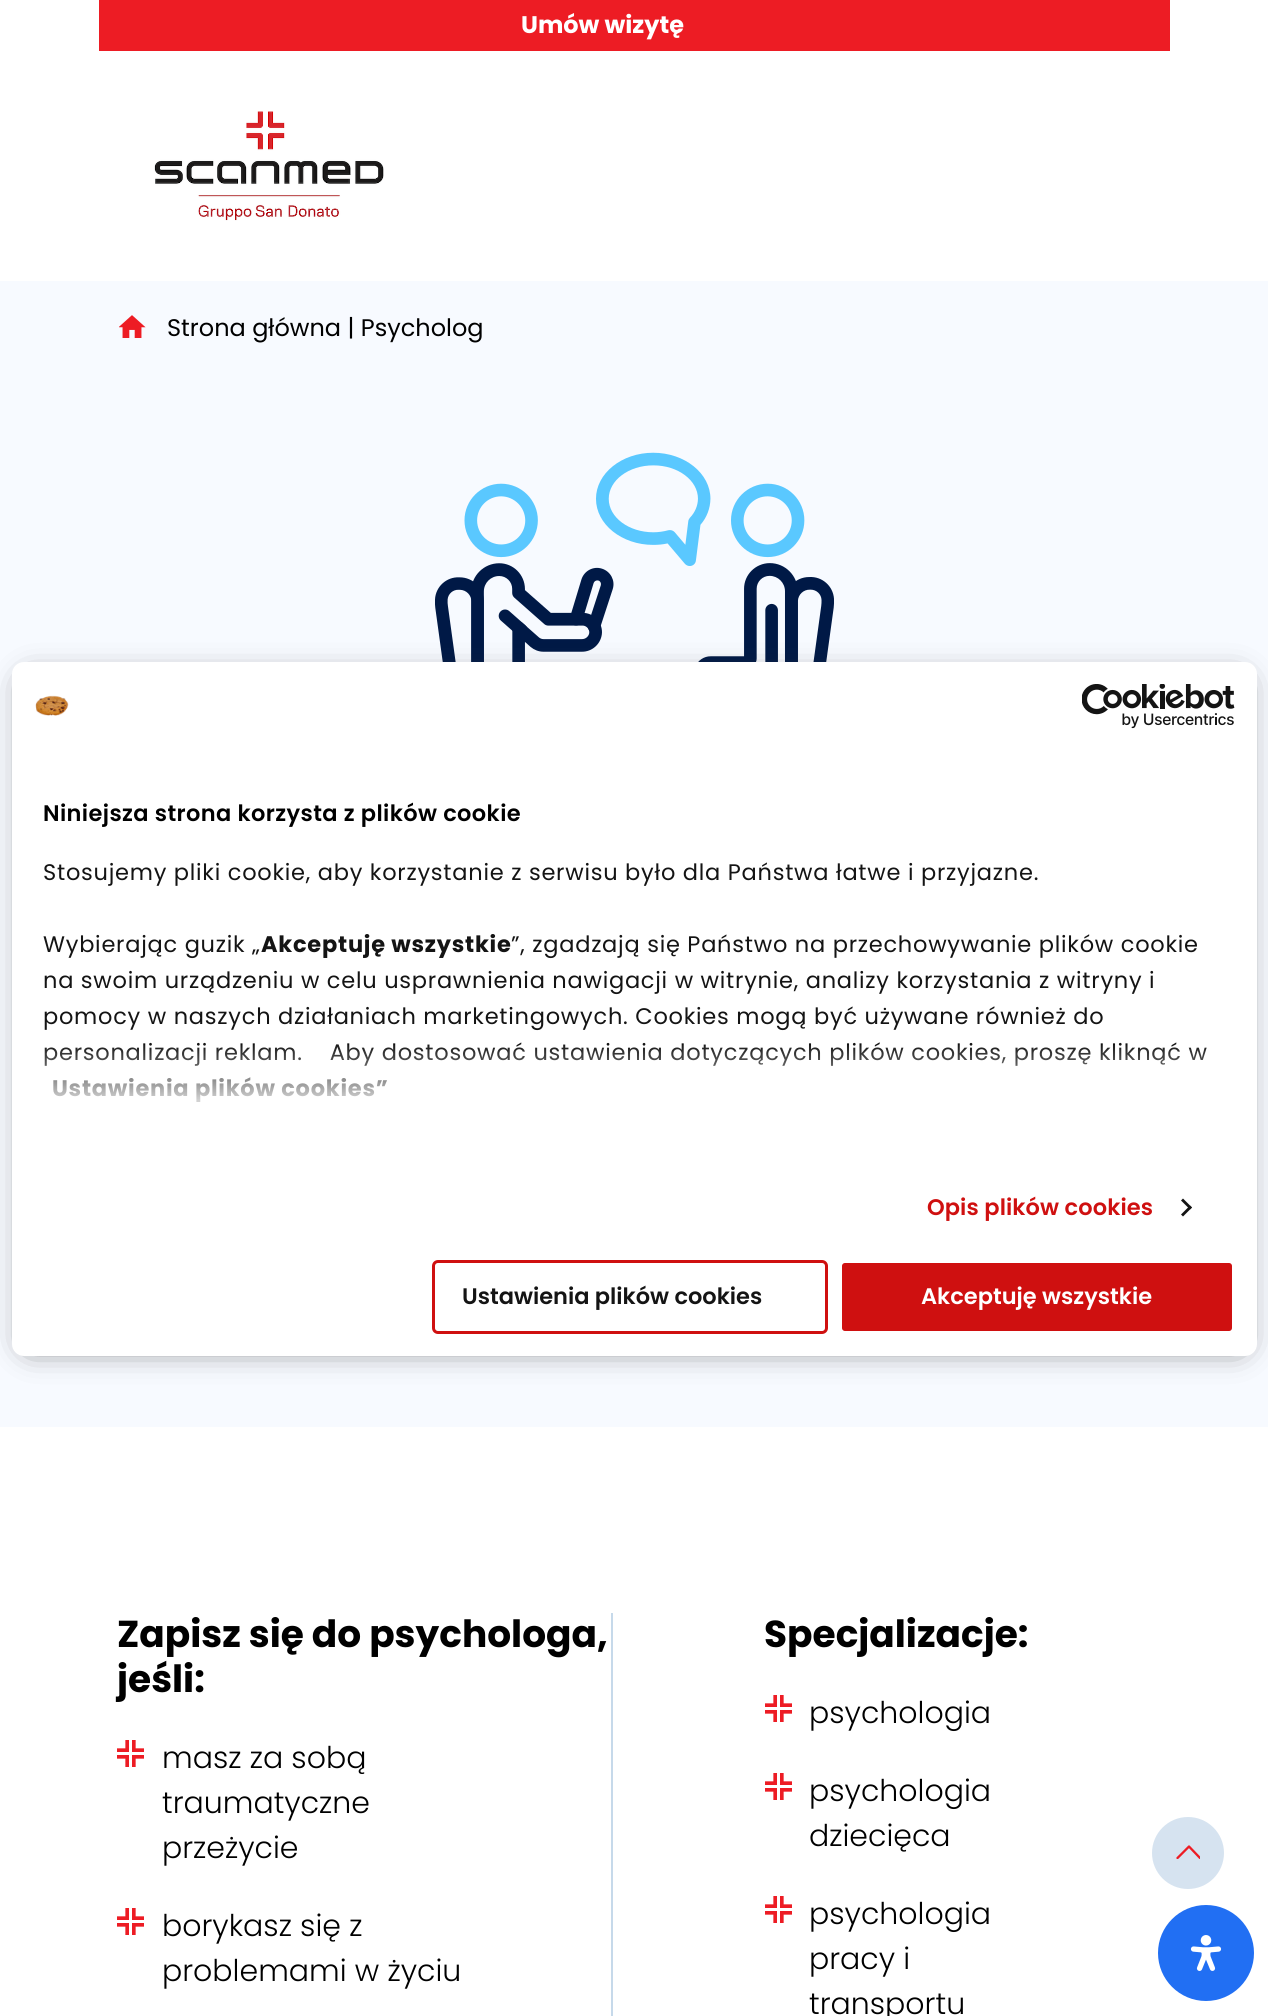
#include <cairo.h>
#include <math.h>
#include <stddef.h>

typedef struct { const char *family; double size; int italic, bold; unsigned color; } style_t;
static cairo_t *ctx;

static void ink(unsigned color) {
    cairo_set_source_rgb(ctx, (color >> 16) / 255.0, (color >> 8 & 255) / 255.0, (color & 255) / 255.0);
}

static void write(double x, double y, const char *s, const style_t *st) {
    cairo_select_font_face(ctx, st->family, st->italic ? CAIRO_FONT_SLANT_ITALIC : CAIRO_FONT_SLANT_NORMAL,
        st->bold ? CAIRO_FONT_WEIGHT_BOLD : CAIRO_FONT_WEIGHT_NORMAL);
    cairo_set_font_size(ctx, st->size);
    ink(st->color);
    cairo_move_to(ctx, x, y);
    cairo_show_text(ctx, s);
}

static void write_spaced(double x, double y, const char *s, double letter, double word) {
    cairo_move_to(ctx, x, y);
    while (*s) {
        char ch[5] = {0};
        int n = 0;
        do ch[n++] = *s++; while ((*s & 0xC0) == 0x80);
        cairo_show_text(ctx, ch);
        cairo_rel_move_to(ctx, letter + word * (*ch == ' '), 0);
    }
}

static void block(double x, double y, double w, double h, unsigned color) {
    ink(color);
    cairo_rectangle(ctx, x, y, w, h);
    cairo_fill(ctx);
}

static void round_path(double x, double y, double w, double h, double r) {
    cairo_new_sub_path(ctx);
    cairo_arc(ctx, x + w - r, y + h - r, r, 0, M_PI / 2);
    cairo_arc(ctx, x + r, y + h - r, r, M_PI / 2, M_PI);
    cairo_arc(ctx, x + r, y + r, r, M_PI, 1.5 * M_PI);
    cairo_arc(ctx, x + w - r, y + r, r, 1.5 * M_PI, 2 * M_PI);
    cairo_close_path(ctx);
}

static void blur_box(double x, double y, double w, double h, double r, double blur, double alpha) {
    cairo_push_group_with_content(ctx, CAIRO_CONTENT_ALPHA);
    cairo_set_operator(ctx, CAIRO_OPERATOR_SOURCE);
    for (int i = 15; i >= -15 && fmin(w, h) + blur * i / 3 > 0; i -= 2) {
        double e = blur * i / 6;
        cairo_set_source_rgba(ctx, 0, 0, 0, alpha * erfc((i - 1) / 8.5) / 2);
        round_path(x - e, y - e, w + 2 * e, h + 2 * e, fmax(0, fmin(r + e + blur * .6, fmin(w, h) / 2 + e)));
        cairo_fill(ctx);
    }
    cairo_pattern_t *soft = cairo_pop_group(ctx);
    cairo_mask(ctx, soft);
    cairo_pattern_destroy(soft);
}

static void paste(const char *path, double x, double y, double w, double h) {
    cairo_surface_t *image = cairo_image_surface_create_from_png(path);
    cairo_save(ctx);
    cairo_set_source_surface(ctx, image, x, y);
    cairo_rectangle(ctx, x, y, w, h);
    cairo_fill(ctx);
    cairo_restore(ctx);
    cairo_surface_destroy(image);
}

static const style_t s1 = {"Poppins", 24, 0, 1, 0xffffff};
static const style_t s2 = {"Poppins", 24, 0, 0, 0x000000};
static const style_t s3 = {"Poppins", 37.5, 0, 1, 0x000000};
static const style_t s4 = {"Poppins Light", 30, 0, 0, 0x000000};
static const style_t s5 = {"Poppins SemiBold", 22.5, 0, 0, 0x141414};
static const style_t s6 = {"Poppins SemiBold", 22.5, 0, 0, 0xffffff};

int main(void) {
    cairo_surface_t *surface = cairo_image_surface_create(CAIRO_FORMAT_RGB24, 1268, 2016);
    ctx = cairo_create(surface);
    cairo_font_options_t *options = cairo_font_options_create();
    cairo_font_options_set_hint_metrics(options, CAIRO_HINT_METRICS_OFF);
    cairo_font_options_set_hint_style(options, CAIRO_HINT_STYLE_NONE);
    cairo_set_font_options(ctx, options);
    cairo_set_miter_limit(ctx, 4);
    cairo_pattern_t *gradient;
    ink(0xffffff);
    cairo_paint(ctx);
    block(99, 0, 1071, 51, 0xed1c24);
    write(521, 33, "Umów wizytę", &s1);
    paste("pic1.png", 154, 111, 230, 110);
    block(0, 281, 1268, 1146, 0xf7faff);
    paste("pic2.png", 119, 315, 27, 23);
    write(167, 336, "Strona główna | Psycholog", &s2);
    paste("pic3.png", 435, 452, 399, 210);
    block(611, 1613, 2, 403, 0xc6d9ea);
    write(117, 1647, "Zapisz się do psychologa,", &s3);
    write(117, 1692, "jeśli:", &s3);
    paste("pic4.png", 117, 1740, 27, 27);
    write(162, 1768, "masz za sobą", &s4);
    write(162, 1813, "traumatyczne", &s4);
    write(162, 1858, "przeżycie", &s4);
    paste("pic4.png", 117, 1908, 27, 27);
    write(162, 1936, "borykasz się z", &s4);
    write(162, 1981, "problemami w życiu", &s4);
    write(764, 1647, "Specjalizacje:", &s3);
    paste("pic4.png", 765, 1695, 27, 27);
    write(809, 1723, "psychologia", &s4);
    paste("pic4.png", 765, 1773, 27, 27);
    write(809, 1801, "psychologia", &s4);
    write(809, 1846, "dziecięca", &s4);
    paste("pic4.png", 765, 1896, 27, 27);
    write(809, 1924, "psychologia", &s4);
    write(809, 1969, "pracy i", &s4);
    write(809, 2014, "transportu", &s4);
    ink(0x353535);
    blur_box(30, 684, 1209, 659, 0, 16.5, 1);
    ink(0xffffff);
    round_path(12, 662, 1245, 694, 12);
    cairo_fill(ctx);
    paste("pic5.png", 35, 695, 34, 21);
    paste("pic6.png", 1082, 684, 153, 45);
    cairo_select_font_face(ctx, "Poppins SemiBold", CAIRO_FONT_SLANT_NORMAL, CAIRO_FONT_WEIGHT_NORMAL);
    cairo_set_font_size(ctx, 22.5);
    ink(0x000000);
    write_spaced(43, 821, "Niniejsza strona korzysta z plików cookie", 0.4, 0);
    cairo_select_font_face(ctx, "Poppins", CAIRO_FONT_SLANT_NORMAL, CAIRO_FONT_WEIGHT_NORMAL);
    ink(0x141414);
    write_spaced(43, 880, "Stosujemy pliki cookie, aby korzystanie z serwisu było dla Państwa łatwe i przyjazne.", 0.75, 0);
    write_spaced(43, 952, "Wybierając guzik „", 0.75, 0);
    cairo_select_font_face(ctx, "Poppins", CAIRO_FONT_SLANT_NORMAL, CAIRO_FONT_WEIGHT_BOLD);
    write_spaced(261, 952, "Akceptuję wszystkie", 0.75, 0);
    cairo_select_font_face(ctx, "Poppins", CAIRO_FONT_SLANT_NORMAL, CAIRO_FONT_WEIGHT_NORMAL);
    write_spaced(511, 952, "”, zgadzają się Państwo na przechowywanie plików cookie", 0.75, 0);
    write_spaced(43, 988, "na swoim urządzeniu w celu usprawnienia nawigacji w witrynie, analizy korzystania z witryny i", 0.75, 0);
    write_spaced(43, 1024, "pomocy w naszych działaniach marketingowych. Cookies mogą być używane również do", 0.75, 0);
    write_spaced(43, 1060, "personalizacji reklam.    Aby dostosować ustawienia dotyczących plików cookies, proszę kliknąć w", 0.75, 0);
    cairo_select_font_face(ctx, "Poppins", CAIRO_FONT_SLANT_NORMAL, CAIRO_FONT_WEIGHT_BOLD);
    write_spaced(52, 1096, "Ustawienia plików cookies”", 0.75, 0);
    gradient = cairo_pattern_create_linear(625, 1156, 625, 1043);
    cairo_pattern_add_color_stop_rgba(gradient, 0, 1, 1, 1, 1);
    cairo_pattern_add_color_stop_rgba(gradient, 0.5, 1, 1, 1, 0.8);
    cairo_pattern_add_color_stop_rgba(gradient, 1, 1, 1, 1, 0);
    cairo_set_source(ctx, gradient);
    cairo_pattern_destroy(gradient);
    cairo_rectangle(ctx, 44, 1045, 1163, 57);
    cairo_fill(ctx);
    cairo_select_font_face(ctx, "Poppins SemiBold", CAIRO_FONT_SLANT_NORMAL, CAIRO_FONT_WEIGHT_NORMAL);
    ink(0xcf1010);
    write_spaced(927, 1215, "Opis plików cookies", 0.1, 0);
    ink(0x141414);
    cairo_new_path(ctx);
    cairo_move_to(ctx, 1183, 1198.5);
    cairo_line_to(ctx, 1192, 1207.5);
    cairo_line_to(ctx, 1190, 1209.5);
    cairo_line_to(ctx, 1181, 1200.5);
    cairo_close_path(ctx);
    cairo_fill(ctx);
    cairo_new_path(ctx);
    cairo_move_to(ctx, 1190, 1205.5);
    cairo_line_to(ctx, 1192, 1207.5);
    cairo_line_to(ctx, 1183, 1216.5);
    cairo_line_to(ctx, 1181, 1214.5);
    cairo_close_path(ctx);
    cairo_fill(ctx);
    round_path(433.5, 1261.5, 393, 71, 4.5);
    ink(0xcf1010);
    cairo_set_line_width(ctx, 3);
    cairo_stroke(ctx);
    write(462, 1304, "Ustawienia plików cookies", &s5);
    ink(0xcf1010);
    round_path(840.5, 1261.5, 393, 71, 4.5);
    cairo_fill_preserve(ctx);
    ink(0xffffff);
    cairo_stroke(ctx);
    write(921, 1304, "Akceptuję wszystkie", &s6);
    ink(0xd6e3f0);
    cairo_new_path(ctx);
    cairo_arc(ctx, 1188, 1853, 36, 0, 2 * M_PI);
    cairo_fill(ctx);
    cairo_save(ctx);
    cairo_rectangle(ctx, 1176, 1845, 24, 14);
    cairo_clip(ctx);
    cairo_new_path(ctx);
    cairo_move_to(ctx, 1177.5, 1858);
    cairo_line_to(ctx, 1189, 1846.5);
    cairo_line_to(ctx, 1200, 1858);
    ink(0xed1c24);
    cairo_set_line_width(ctx, 2.3);
    cairo_set_line_cap(ctx, CAIRO_LINE_CAP_ROUND);
    cairo_set_line_join(ctx, CAIRO_LINE_JOIN_ROUND);
    cairo_stroke(ctx);
    cairo_restore(ctx);
    ink(0x216ff3);
    cairo_arc(ctx, 1206, 1953, 48, 0, 2 * M_PI);
    cairo_fill(ctx);
    paste("pic7.png", 1190, 1935, 32, 36);
    cairo_surface_write_to_png(surface, "screenshot.png");
    cairo_font_options_destroy(options);
    cairo_destroy(ctx);
    cairo_surface_destroy(surface);
    return 0;
}
